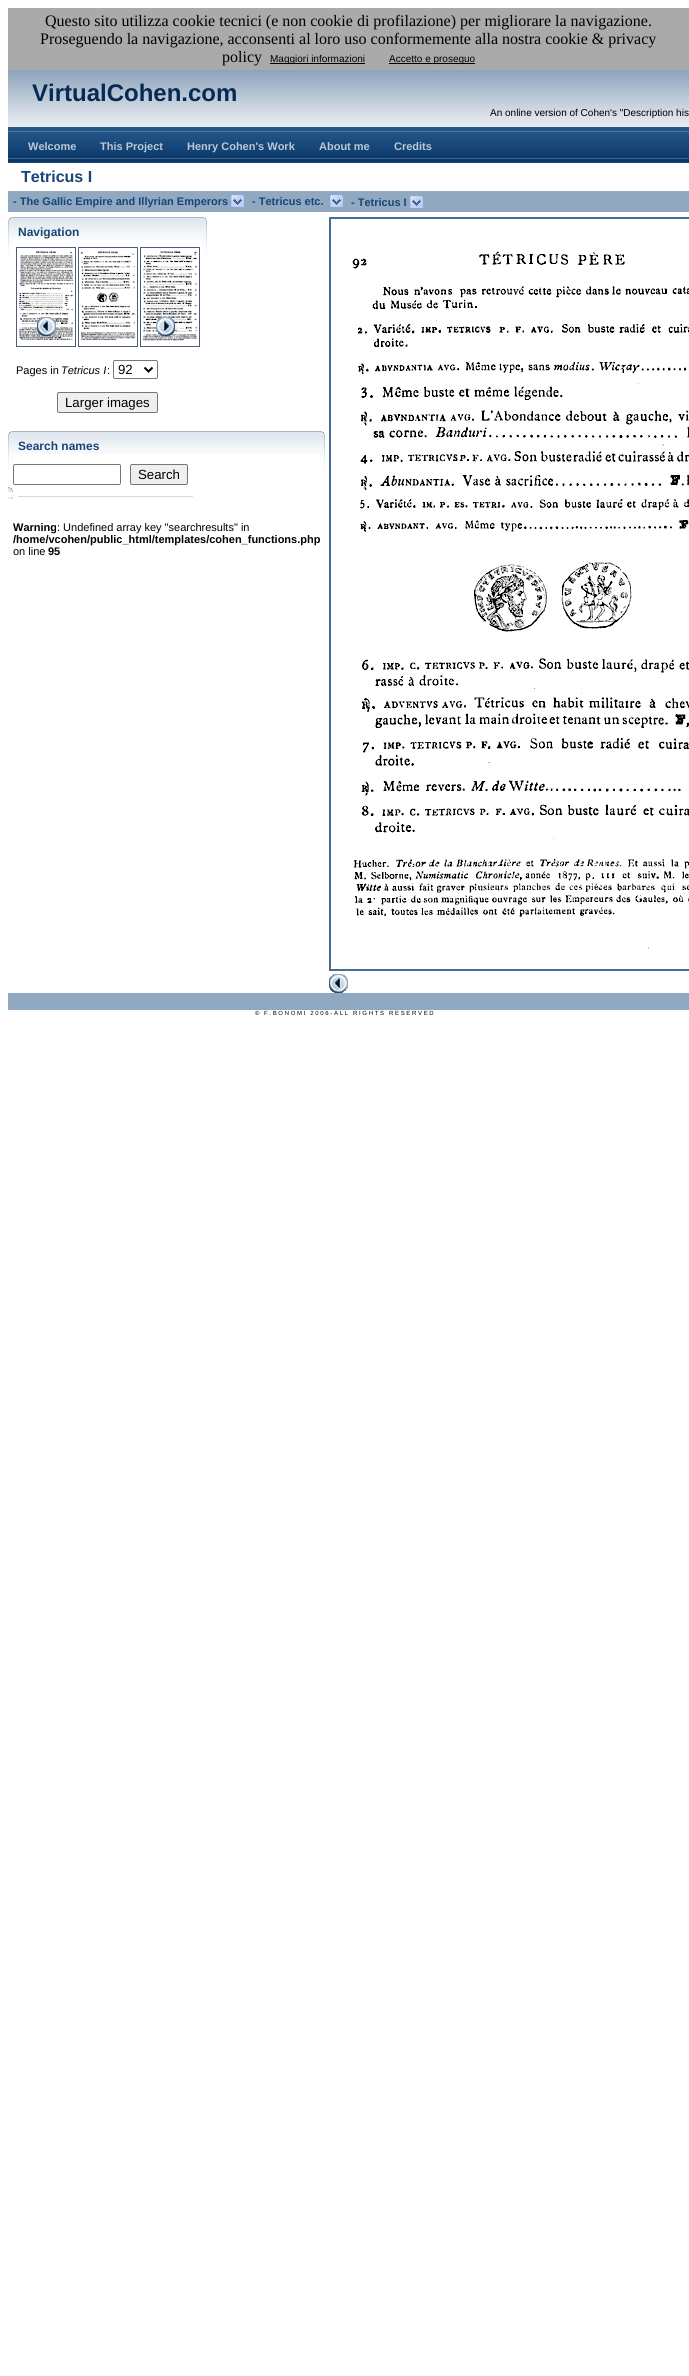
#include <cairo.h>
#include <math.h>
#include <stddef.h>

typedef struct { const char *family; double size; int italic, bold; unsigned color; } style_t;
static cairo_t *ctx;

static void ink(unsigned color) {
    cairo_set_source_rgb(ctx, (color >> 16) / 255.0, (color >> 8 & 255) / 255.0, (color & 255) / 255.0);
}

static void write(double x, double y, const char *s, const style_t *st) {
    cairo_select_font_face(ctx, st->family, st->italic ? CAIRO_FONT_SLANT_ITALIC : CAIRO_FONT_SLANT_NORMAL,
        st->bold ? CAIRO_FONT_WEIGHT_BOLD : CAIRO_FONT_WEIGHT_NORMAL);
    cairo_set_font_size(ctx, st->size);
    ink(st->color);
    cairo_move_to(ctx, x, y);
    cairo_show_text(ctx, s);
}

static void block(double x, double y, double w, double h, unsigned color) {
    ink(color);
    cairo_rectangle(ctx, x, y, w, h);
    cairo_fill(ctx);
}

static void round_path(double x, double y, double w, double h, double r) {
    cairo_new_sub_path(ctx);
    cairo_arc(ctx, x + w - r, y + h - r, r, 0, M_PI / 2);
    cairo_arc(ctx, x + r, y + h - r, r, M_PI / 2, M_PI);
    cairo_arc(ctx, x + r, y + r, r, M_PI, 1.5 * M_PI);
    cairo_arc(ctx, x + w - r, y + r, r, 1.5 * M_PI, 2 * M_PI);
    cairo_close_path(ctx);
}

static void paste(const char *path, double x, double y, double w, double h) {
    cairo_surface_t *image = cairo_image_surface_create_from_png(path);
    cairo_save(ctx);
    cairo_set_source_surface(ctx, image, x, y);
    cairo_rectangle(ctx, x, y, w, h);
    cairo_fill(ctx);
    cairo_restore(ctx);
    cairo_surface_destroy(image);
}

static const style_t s1 = {"Liberation Serif", 16, 0, 0, 0x000000};
static const style_t s2 = {"Liberation Sans", 10, 0, 0, 0x000000};
static const style_t s3 = {"Liberation Sans", 24, 0, 1, 0x062a53};
static const style_t s4 = {"Liberation Sans", 11, 0, 1, 0xbac8d7};
static const style_t s5 = {"Liberation Sans", 16, 0, 1, 0x164576};
static const style_t s6 = {"Liberation Sans", 11, 0, 1, 0x164576};
static const style_t s7 = {"Liberation Sans", 12, 0, 1, 0x164576};
static const style_t s8 = {"Liberation Sans", 11, 0, 0, 0x000000};
static const style_t s9 = {"Liberation Sans", 11, 1, 0, 0x000000};
static const style_t s10 = {"Liberation Sans", 13.25, 0, 0, 0x000000};
static const style_t s11 = {"Liberation Sans", 11, 0, 1, 0x000000};
static const style_t s12 = {"Liberation Sans", 6, 0, 0, 0x000000};

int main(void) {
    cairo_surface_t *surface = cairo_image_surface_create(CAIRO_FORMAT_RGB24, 689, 2376);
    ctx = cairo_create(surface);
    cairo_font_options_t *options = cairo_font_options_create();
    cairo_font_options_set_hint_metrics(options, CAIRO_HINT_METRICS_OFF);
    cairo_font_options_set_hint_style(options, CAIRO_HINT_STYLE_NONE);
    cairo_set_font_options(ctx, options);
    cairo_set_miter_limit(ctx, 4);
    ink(0xffffff);
    cairo_paint(ctx);
    block(8, 8, 681, 62, 0xaaaaaa);
    write(45, 26, "Questo sito utilizza cookie tecnici (e non cookie di profilazione) per migliorare la navigazione.", &s1);
    write(40, 44, "Proseguendo la navigazione, acconsenti al loro uso conformemente alla nostra cookie & privacy", &s1);
    write(222, 62, "policy", &s1);
    block(270, 63, 95, 1, 0x000000);
    write(270, 62, "Maggiori informazioni", &s2);
    block(389, 63, 86, 1, 0x000000);
    write(389, 62, "Accetto e proseguo", &s2);
    paste("pic1.png", 8, 70, 681, 57);
    write(32, 101, "VirtualCohen.com", &s3);
    write(490, 116, "An online version of Cohen's \"Description his", &s2);
    paste("pic2.png", 8, 127, 681, 36);
    write(28, 150, "Welcome", &s4);
    write(100, 150, "This Project", &s4);
    write(187, 150, "Henry Cohen's Work", &s4);
    write(319, 150, "About me", &s4);
    write(394, 150, "Credits", &s4);
    write(21, 182, "Tetricus I", &s5);
    block(8, 191, 681, 21, 0x90a9c1);
    write(13, 205, "- The Gallic Empire and Illyrian Emperors", &s6);
    paste("pic3.png", 231, 195, 13, 12);
    write(252, 205, "- Tetricus etc.", &s6);
    paste("pic3.png", 330, 195, 13, 12);
    write(351, 206, "- Tetricus I", &s6);
    paste("pic3.png", 410, 196, 13, 12);
    paste("pic4.png", 8, 217, 5, 38);
    paste("pic5.png", 13, 217, 189, 23);
    write(18, 236, "Navigation", &s7);
    paste("pic6.png", 16, 247, 60, 100);
    paste("pic7.png", 37, 317, 19, 19);
    paste("pic8.png", 78, 247, 60, 100);
    paste("pic9.png", 140, 247, 60, 100);
    paste("pic10.png", 156, 317, 19, 19);
    write(16, 374, "Pages in", &s8);
    write(61, 374, "Tetricus I", &s9);
    write(107, 374, ":", &s8);
    round_path(113.5, 360.5, 44, 18, 1.5);
    ink(0x767676);
    cairo_set_line_width(ctx, 1);
    cairo_stroke(ctx);
    cairo_new_path(ctx);
    cairo_move_to(ctx, 144.5, 367.5);
    cairo_line_to(ctx, 148.5, 371.5);
    cairo_line_to(ctx, 152.5, 367.5);
    ink(0x000000);
    cairo_set_line_width(ctx, 2);
    cairo_stroke(ctx);
    write(118, 374, "92", &s10);
    ink(0xefefef);
    round_path(57.5, 392.5, 100, 20, 1.5);
    cairo_fill_preserve(ctx);
    ink(0x767676);
    cairo_set_line_width(ctx, 1);
    cairo_stroke(ctx);
    write(65, 407, "Larger images", &s10);
    paste("pic11.png", 202, 217, 5, 40);
    paste("pic4.png", 8, 431, 5, 38);
    paste("pic12.png", 8, 487, 5, 12);
    block(8, 492, 5, 5, 0xffffff);
    paste("pic13.png", 13, 431, 307, 23);
    write(18, 450, "Search names", &s7);
    round_path(13.5, 464.5, 107, 20, 1.5);
    ink(0x767676);
    cairo_stroke(ctx);
    ink(0xefefef);
    round_path(130.5, 464.5, 57, 20, 1.5);
    cairo_fill_preserve(ctx);
    ink(0x767676);
    cairo_stroke(ctx);
    write(138, 479, "Search", &s10);
    block(13, 496, 180, 1, 0xd0dbe5);
    block(13, 496, 5, 1, 0xffffff);
    write(13, 531, "Warning", &s11);
    write(57, 531, ": Undefined array key \"searchresults\" in", &s8);
    write(13, 543, "/home/vcohen/public_html/templates/cohen_functions.php", &s11);
    write(13, 555, "on line", &s8);
    write(48, 555, "95", &s11);
    paste("pic11.png", 320, 431, 5, 40);
    cairo_rectangle(ctx, 329.5, 217.5, 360, 753);
    ink(0x496d93);
    cairo_stroke(ctx);
    cairo_rectangle(ctx, 330.5, 218.5, 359, 751);
    cairo_stroke(ctx);
    paste("pic14.png", 352, 251, 337, 698);
    paste("pic15.png", 329, 974, 19, 19);
    block(8, 993, 681, 17, 0x90a9c1);
    write(255, 1015, "©", &s12);
    write(264, 1015, "F . B O N O M I   2 0 0 6 - A L L   R I G H T S", &s12);
    write(389, 1015, "R E S E R V E D", &s12);
    cairo_surface_write_to_png(surface, "screenshot.png");
    cairo_font_options_destroy(options);
    cairo_destroy(ctx);
    cairo_surface_destroy(surface);
    return 0;
}
